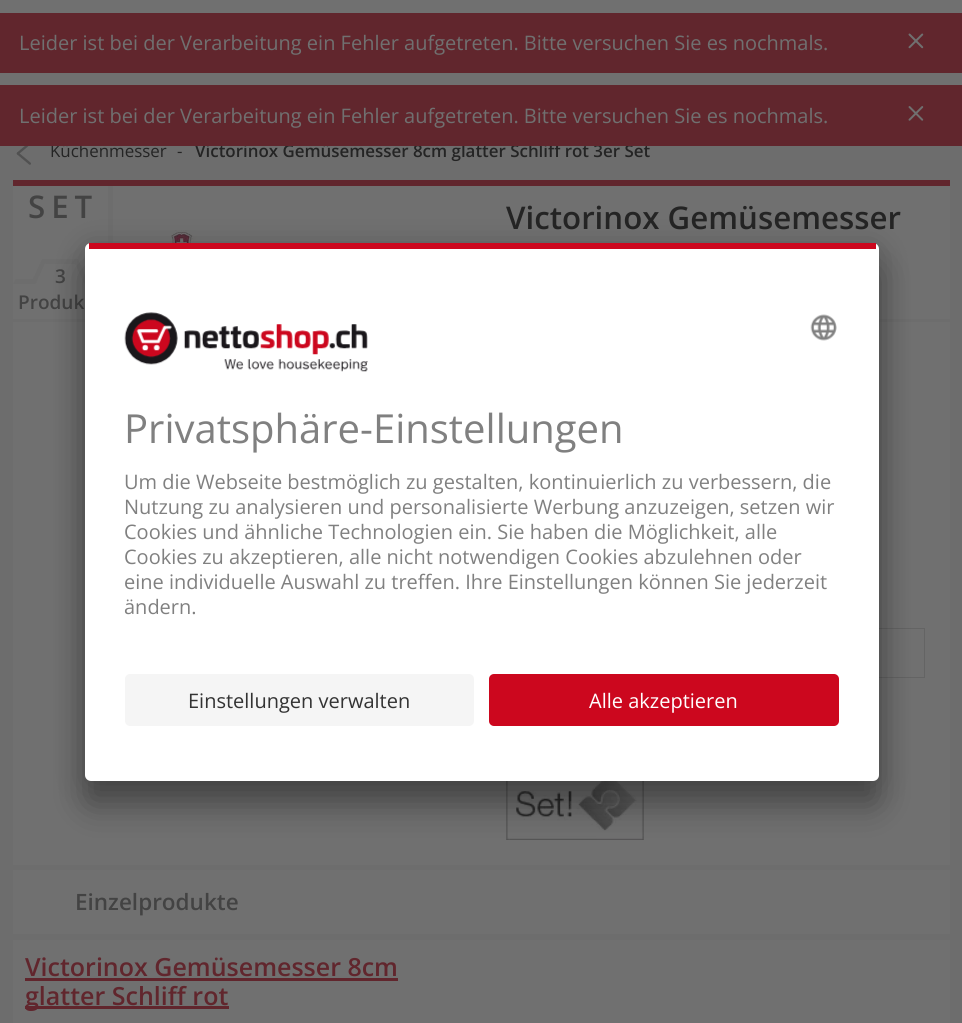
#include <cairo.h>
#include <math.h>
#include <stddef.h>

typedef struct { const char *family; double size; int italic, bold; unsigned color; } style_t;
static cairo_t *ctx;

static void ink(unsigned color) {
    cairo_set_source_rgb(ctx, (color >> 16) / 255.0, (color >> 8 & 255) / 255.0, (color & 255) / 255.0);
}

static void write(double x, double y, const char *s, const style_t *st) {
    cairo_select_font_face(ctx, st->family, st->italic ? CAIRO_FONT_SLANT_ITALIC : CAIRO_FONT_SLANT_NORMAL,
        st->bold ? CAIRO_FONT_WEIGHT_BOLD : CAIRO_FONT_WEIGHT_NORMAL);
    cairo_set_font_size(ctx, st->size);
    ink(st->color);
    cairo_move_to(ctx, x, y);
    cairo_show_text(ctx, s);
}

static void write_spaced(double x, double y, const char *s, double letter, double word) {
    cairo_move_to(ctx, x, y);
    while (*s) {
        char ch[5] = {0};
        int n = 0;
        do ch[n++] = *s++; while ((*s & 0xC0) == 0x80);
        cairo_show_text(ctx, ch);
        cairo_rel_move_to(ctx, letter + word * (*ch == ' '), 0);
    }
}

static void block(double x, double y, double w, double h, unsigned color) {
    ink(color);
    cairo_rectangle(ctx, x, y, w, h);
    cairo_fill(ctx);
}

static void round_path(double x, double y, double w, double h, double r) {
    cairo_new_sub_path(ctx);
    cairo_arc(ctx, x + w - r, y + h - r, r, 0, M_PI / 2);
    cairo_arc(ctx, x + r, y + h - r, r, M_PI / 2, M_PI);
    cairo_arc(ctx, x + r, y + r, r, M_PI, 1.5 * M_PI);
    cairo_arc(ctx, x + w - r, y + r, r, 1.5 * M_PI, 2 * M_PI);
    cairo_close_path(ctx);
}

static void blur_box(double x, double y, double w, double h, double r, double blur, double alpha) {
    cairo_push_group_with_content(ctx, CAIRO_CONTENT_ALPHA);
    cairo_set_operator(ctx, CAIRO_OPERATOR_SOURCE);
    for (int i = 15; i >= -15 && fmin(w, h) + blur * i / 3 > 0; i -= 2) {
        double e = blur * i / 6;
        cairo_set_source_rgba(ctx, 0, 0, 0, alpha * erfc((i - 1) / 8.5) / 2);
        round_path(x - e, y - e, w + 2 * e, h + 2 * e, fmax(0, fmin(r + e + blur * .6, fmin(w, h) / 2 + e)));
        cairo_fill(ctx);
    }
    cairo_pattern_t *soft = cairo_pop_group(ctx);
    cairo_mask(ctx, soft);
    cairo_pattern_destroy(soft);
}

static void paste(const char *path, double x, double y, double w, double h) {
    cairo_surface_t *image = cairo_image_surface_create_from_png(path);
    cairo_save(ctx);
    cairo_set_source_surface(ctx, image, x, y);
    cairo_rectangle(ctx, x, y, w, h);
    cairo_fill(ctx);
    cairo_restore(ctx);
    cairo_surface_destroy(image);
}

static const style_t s1 = {"Open Sans", 20, 0, 0, 0x707070};
static const style_t s2 = {"Open Sans", 16.9, 0, 0, 0x242424};
static const style_t s3 = {"Open Sans SemiBold", 16.9, 0, 0, 0x242424};
static const style_t s4 = {"Open Sans SemiBold", 19, 0, 0, 0x434343};
static const style_t s5 = {"Open Sans SemiBold", 31.25, 0, 0, 0x242424};
static const style_t s6 = {"Open Sans SemiBold", 22.5, 0, 0, 0x434343};
static const style_t s7 = {"Open Sans SemiBold", 25, 0, 0, 0x61262d};
static const style_t s8 = {"Open Sans", 40, 0, 0, 0x808080};
static const style_t s9 = {"Open Sans", 20, 0, 0, 0x808080};
static const style_t s10 = {"Open Sans", 20, 0, 0, 0x333333};
static const style_t s11 = {"Open Sans", 20, 0, 0, 0xffffff};

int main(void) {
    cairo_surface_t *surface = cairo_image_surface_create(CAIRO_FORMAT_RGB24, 962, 1023);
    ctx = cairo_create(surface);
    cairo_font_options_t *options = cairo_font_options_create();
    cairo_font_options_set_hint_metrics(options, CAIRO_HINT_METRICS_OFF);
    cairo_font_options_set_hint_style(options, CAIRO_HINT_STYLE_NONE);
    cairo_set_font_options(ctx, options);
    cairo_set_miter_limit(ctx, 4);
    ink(0x6d6d6d);
    cairo_paint(ctx);
    block(0, 13, 962, 60, 0x61262d);
    block(0, 0, 962, 13, 0x707070);
    write(19, 50, "Leider ist bei der Verarbeitung ein Fehler aufgetreten. Bitte versuchen Sie es nochmals.", &s1);
    paste("pic1.png", 908, 33, 16, 16);
    write(50, 157, "Küchenmesser", &s2);
    write(195, 157, "Victorinox Gemüsemesser 8cm glatter Schliff rot 3er Set", &s3);
    block(0, 85, 962, 61, 0x61262d);
    block(0, 73, 962, 12, 0x707070);
    write(19, 123, "Leider ist bei der Verarbeitung ein Fehler aufgetreten. Bitte versuchen Sie es nochmals.", &s1);
    paste("pic2.png", 908, 106, 16, 15);
    paste("pic3.png", 16, 146, 15, 19);
    write(177, 157, "-", &s2);
    block(13, 186, 937, 133, 0x707070);
    block(13, 180, 937, 6, 0x61262d);
    block(108, 186, 5, 57, 0x6d6d6d);
    cairo_select_font_face(ctx, "Open Sans SemiBold", CAIRO_FONT_SLANT_NORMAL, CAIRO_FONT_WEIGHT_NORMAL);
    cairo_set_font_size(ctx, 31.25);
    ink(0x434343);
    write_spaced(28, 218, "SET", 6, 0);
    block(38, 259, 45, 5, 0x6d6d6d);
    ink(0x707070);
    cairo_new_path(ctx);
    cairo_move_to(ctx, 24.5, 259);
    cairo_line_to(ctx, 47, 259);
    cairo_line_to(ctx, 35.5, 284);
    cairo_line_to(ctx, 13, 284);
    cairo_close_path(ctx);
    cairo_fill(ctx);
    ink(0x6d6d6d);
    cairo_new_path(ctx);
    cairo_move_to(ctx, 42, 259);
    cairo_line_to(ctx, 47, 259);
    cairo_line_to(ctx, 35.5, 284);
    cairo_line_to(ctx, 30.5, 284);
    cairo_close_path(ctx);
    cairo_fill(ctx);
    cairo_new_path(ctx);
    cairo_move_to(ctx, 15.5, 279);
    cairo_line_to(ctx, 38, 279);
    cairo_line_to(ctx, 35.5, 284);
    cairo_line_to(ctx, 13, 284);
    cairo_close_path(ctx);
    cairo_fill(ctx);
    write(55, 283, "3", &s4);
    ink(0x707070);
    cairo_new_path(ctx);
    cairo_move_to(ctx, 73, 259);
    cairo_line_to(ctx, 95.5, 259);
    cairo_line_to(ctx, 107, 284);
    cairo_line_to(ctx, 84.5, 284);
    cairo_close_path(ctx);
    cairo_fill(ctx);
    ink(0x6d6d6d);
    cairo_new_path(ctx);
    cairo_move_to(ctx, 82, 279);
    cairo_line_to(ctx, 104.5, 279);
    cairo_line_to(ctx, 107, 284);
    cairo_line_to(ctx, 84.5, 284);
    cairo_close_path(ctx);
    cairo_fill(ctx);
    cairo_new_path(ctx);
    cairo_move_to(ctx, 73, 259);
    cairo_line_to(ctx, 78, 259);
    cairo_line_to(ctx, 89.5, 284);
    cairo_line_to(ctx, 84.5, 284);
    cairo_close_path(ctx);
    cairo_fill(ctx);
    write(18, 309, "Produk", &s4);
    paste("pic4.png", 130, 230, 104, 13);
    write(506, 229, "Victorinox Gemüsemesser", &s5);
    block(13, 322, 937, 543, 0x707070);
    cairo_rectangle(ctx, 506.5, 628.5, 418, 49);
    ink(0x646464);
    cairo_set_line_width(ctx, 1);
    cairo_stroke(ctx);
    paste("pic5.png", 506, 781, 138, 59);
    block(13, 870, 937, 64, 0x707070);
    write(75, 910, "Einzelprodukte", &s6);
    block(13, 940, 937, 83, 0x707070);
    write(25, 976, "Victorinox Gemüsemesser 8cm", &s7);
    block(25, 978, 373, 3, 0x61262d);
    block(25, 1006, 204, 3, 0x61262d);
    write(25, 1005, "glatter Schliff rot", &s7);
    ink(0x000000);
    blur_box(85, 268, 794, 538, 6, 17.5, 0.3);
    blur_box(85, 249, 794, 539, 6, 16, 0.22);
    ink(0xffffff);
    round_path(85, 243, 794, 538, 6);
    cairo_fill(ctx);
    block(89, 243, 787, 6, 0xcc071e);
    paste("pic6.png", 124, 312, 244, 60);
    paste("pic7.png", 810, 314, 27, 27);
    write(124, 443, "Privatsphäre-Einstellungen", &s8);
    write(124, 489, "Um die Webseite bestmöglich zu gestalten, kontinuierlich zu verbessern, die", &s9);
    write(124, 514, "Nutzung zu analysieren und personalisierte Werbung anzuzeigen, setzen wir", &s9);
    write(124, 539, "Cookies und ähnliche Technologien ein. Sie haben die Möglichkeit, alle", &s9);
    write(124, 564, "Cookies zu akzeptieren, alle nicht notwendigen Cookies abzulehnen oder", &s9);
    write(124, 589, "eine individuelle Auswahl zu treffen. Ihre Einstellungen können Sie jederzeit", &s9);
    write(124, 614, "ändern.", &s9);
    ink(0xf5f5f5);
    round_path(125, 674, 349, 52, 5);
    cairo_fill(ctx);
    write(188, 708, "Einstellungen verwalten", &s10);
    ink(0xcc071e);
    round_path(489, 674, 350, 52, 5);
    cairo_fill(ctx);
    write(589, 708, "Alle akzeptieren", &s11);
    cairo_surface_write_to_png(surface, "screenshot.png");
    cairo_font_options_destroy(options);
    cairo_destroy(ctx);
    cairo_surface_destroy(surface);
    return 0;
}
